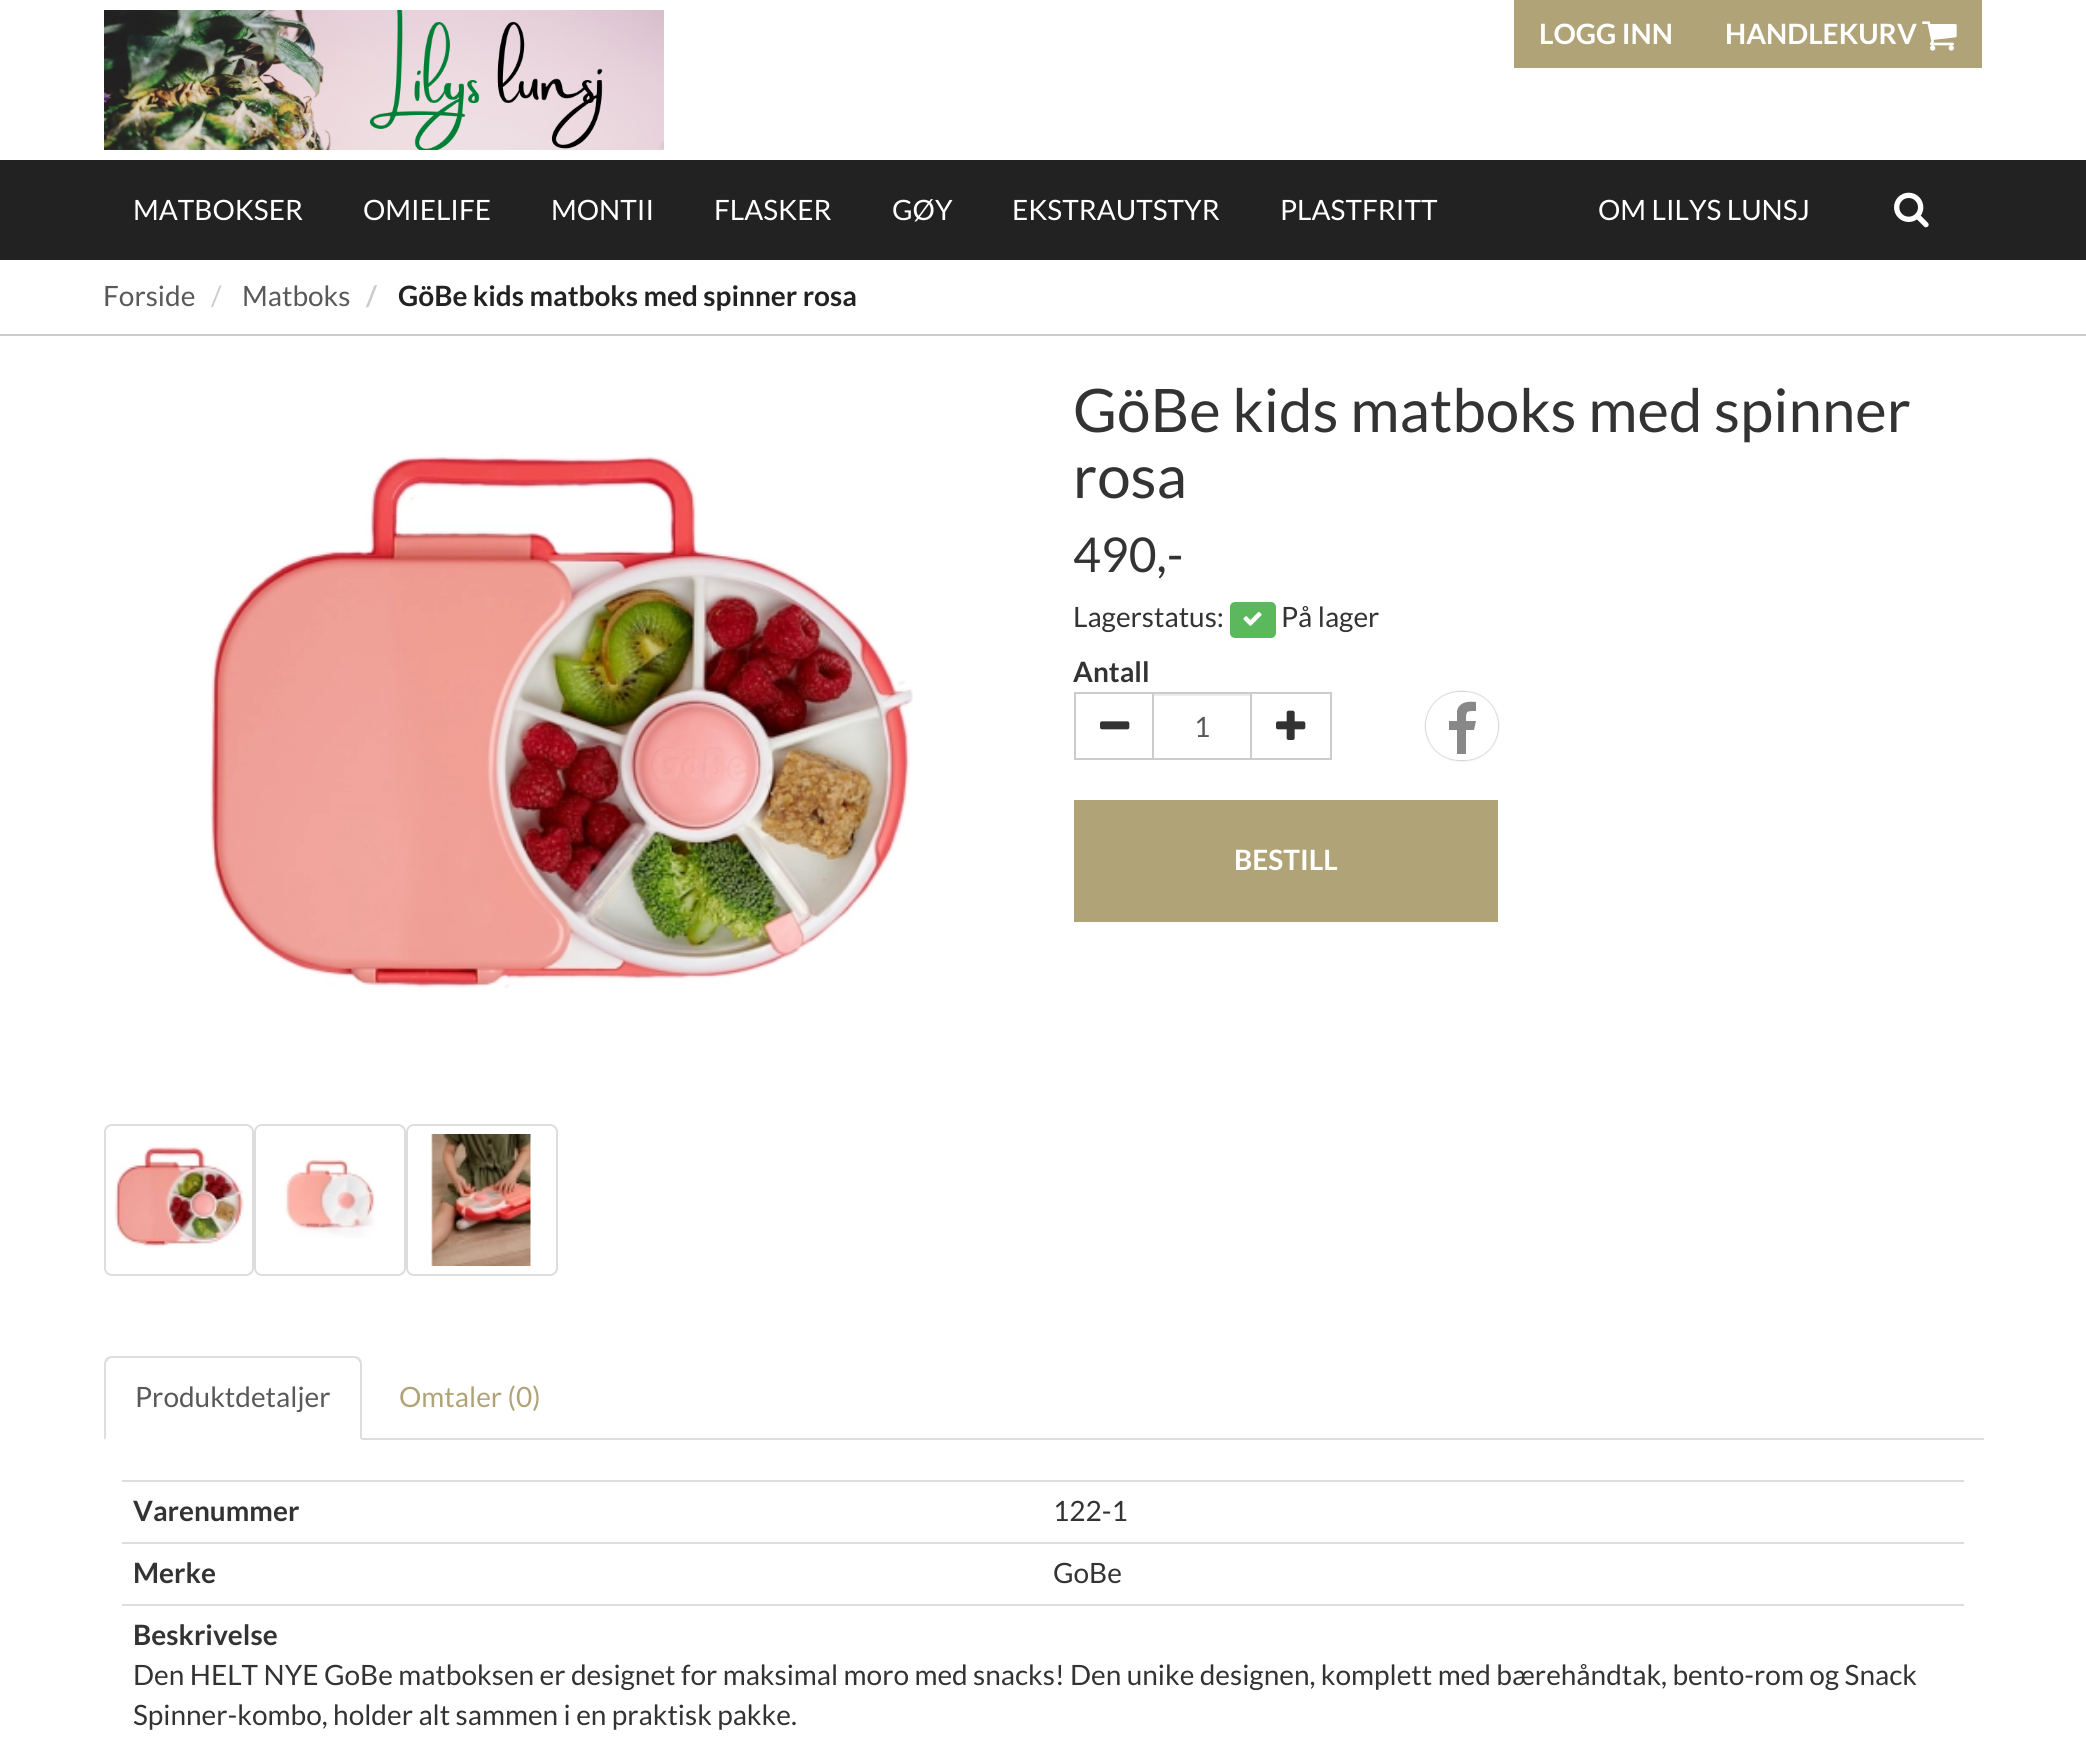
#include <cairo.h>
#include <math.h>
#include <stddef.h>

typedef struct { const char *family; double size; int italic, bold; unsigned color; } style_t;
static cairo_t *ctx;

static void ink(unsigned color) {
    cairo_set_source_rgb(ctx, (color >> 16) / 255.0, (color >> 8 & 255) / 255.0, (color & 255) / 255.0);
}

static void write(double x, double y, const char *s, const style_t *st) {
    cairo_select_font_face(ctx, st->family, st->italic ? CAIRO_FONT_SLANT_ITALIC : CAIRO_FONT_SLANT_NORMAL,
        st->bold ? CAIRO_FONT_WEIGHT_BOLD : CAIRO_FONT_WEIGHT_NORMAL);
    cairo_set_font_size(ctx, st->size);
    ink(st->color);
    cairo_move_to(ctx, x, y);
    cairo_show_text(ctx, s);
}

static void block(double x, double y, double w, double h, unsigned color) {
    ink(color);
    cairo_rectangle(ctx, x, y, w, h);
    cairo_fill(ctx);
}

static void round_path(double x, double y, double w, double h, double r) {
    cairo_new_sub_path(ctx);
    cairo_arc(ctx, x + w - r, y + h - r, r, 0, M_PI / 2);
    cairo_arc(ctx, x + r, y + h - r, r, M_PI / 2, M_PI);
    cairo_arc(ctx, x + r, y + r, r, M_PI, 1.5 * M_PI);
    cairo_arc(ctx, x + w - r, y + r, r, 1.5 * M_PI, 2 * M_PI);
    cairo_close_path(ctx);
}

static void blur_box(double x, double y, double w, double h, double r, double blur, double alpha) {
    cairo_push_group_with_content(ctx, CAIRO_CONTENT_ALPHA);
    cairo_set_operator(ctx, CAIRO_OPERATOR_SOURCE);
    for (int i = 15; i >= -15 && fmin(w, h) + blur * i / 3 > 0; i -= 2) {
        double e = blur * i / 6;
        cairo_set_source_rgba(ctx, 0, 0, 0, alpha * erfc((i - 1) / 8.5) / 2);
        round_path(x - e, y - e, w + 2 * e, h + 2 * e, fmax(0, fmin(r + e + blur * .6, fmin(w, h) / 2 + e)));
        cairo_fill(ctx);
    }
    cairo_pattern_t *soft = cairo_pop_group(ctx);
    cairo_mask(ctx, soft);
    cairo_pattern_destroy(soft);
}

static void paste(const char *path, double x, double y, double w, double h) {
    cairo_surface_t *image = cairo_image_surface_create_from_png(path);
    cairo_save(ctx);
    cairo_set_source_surface(ctx, image, x, y);
    cairo_rectangle(ctx, x, y, w, h);
    cairo_fill(ctx);
    cairo_restore(ctx);
    cairo_surface_destroy(image);
}

static const style_t s1 = {"Lato", 28, 0, 1, 0xffffff};
static const style_t s2 = {"Lato", 28, 0, 0, 0xffffff};
static const style_t s3 = {"Lato", 28, 0, 0, 0x595959};
static const style_t s4 = {"Lato", 28, 0, 0, 0xcccccc};
static const style_t s5 = {"Lato", 28, 0, 1, 0xcccccc};
static const style_t s6 = {"Lato", 28, 0, 1, 0x222222};
static const style_t s7 = {"Lato", 60, 0, 0, 0x333333};
static const style_t s8 = {"Lato", 48, 0, 0, 0x333333};
static const style_t s9 = {"Lato", 28, 0, 0, 0x333333};
static const style_t s10 = {"Lato", 28, 0, 1, 0x333333};
static const style_t s11 = {"Lato", 28, 0, 0, 0xb0a377};

int main(void) {
    cairo_surface_t *surface = cairo_image_surface_create(CAIRO_FORMAT_RGB24, 2086, 1739);
    ctx = cairo_create(surface);
    cairo_font_options_t *options = cairo_font_options_create();
    cairo_font_options_set_hint_metrics(options, CAIRO_HINT_METRICS_OFF);
    cairo_font_options_set_hint_style(options, CAIRO_HINT_STYLE_NONE);
    cairo_set_font_options(ctx, options);
    cairo_set_miter_limit(ctx, 4);
    ink(0xffffff);
    cairo_paint(ctx);
    paste("pic1.png", 104, 10, 560, 140);
    block(1514, 0, 468, 68, 0xb0a377);
    write(1539, 44, "LOGG INN", &s1);
    write(1725, 44, "HANDLEKURV", &s1);
    paste("pic2.png", 1922, 21, 35, 30);
    block(0, 160, 2086, 100, 0x222222);
    write(133, 220, "MATBOKSER", &s2);
    write(363, 220, "OMIELIFE", &s2);
    write(551, 220, "MONTII", &s2);
    write(714, 220, "FLASKER", &s2);
    write(892, 220, "GØY", &s2);
    write(1012, 220, "EKSTRAUTSTYR", &s2);
    write(1280, 220, "PLASTFRITT", &s2);
    write(1598, 220, "OM LILYS LUNSJ", &s2);
    paste("pic3.png", 1894, 192, 35, 36);
    block(0, 334, 2086, 2, 0xcccccc);
    write(103, 306, "Forside", &s3);
    write(211, 306, "/", &s4);
    write(242, 306, "Matboks", &s3);
    write(366, 306, "/", &s5);
    write(398, 306, "GöBe kids matboks med spinner rosa", &s6);
    paste("pic4.png", 210, 454, 703, 534);
    round_path(105, 1125, 148, 150, 7);
    ink(0xdddddd);
    cairo_stroke(ctx);
    paste("pic5.png", 114, 1146, 130, 102);
    round_path(255, 1125, 150, 150, 7);
    cairo_stroke(ctx);
    paste("pic6.png", 284, 1157, 91, 81);
    round_path(407, 1125, 150, 150, 7);
    cairo_stroke(ctx);
    paste("pic7.png", 431, 1134, 100, 132);
    write(1073, 432, "GöBe kids matboks med spinner", &s7);
    write(1073, 498, "rosa", &s7);
    write(1073, 572, "490,-", &s8);
    write(1073, 627, "Lagerstatus:", &s9);
    ink(0x5cb85c);
    round_path(1230, 602, 46, 36, 5);
    cairo_fill(ctx);
    paste("pic8.png", 1243, 611, 19, 15);
    write(1281, 627, "På lager", &s9);
    write(1073, 682, "Antall", &s10);
    cairo_rectangle(ctx, 1075, 693, 78, 66);
    ink(0xcccccc);
    cairo_stroke(ctx);
    paste("pic9.png", 1100, 721, 30, 9);
    block(1154, 694, 96, 2, 0xececec);
    cairo_rectangle(ctx, 1153, 693, 98, 66);
    ink(0xcccccc);
    cairo_stroke(ctx);
    write(1194, 737, "1", &s3);
    cairo_rectangle(ctx, 1251, 693, 80, 66);
    ink(0xcccccc);
    cairo_stroke(ctx);
    paste("pic10.png", 1276, 710, 30, 30);
    cairo_save(ctx);
    cairo_set_fill_rule(ctx, CAIRO_FILL_RULE_EVEN_ODD);
    cairo_new_path(ctx);
    cairo_move_to(ctx, 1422, 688);
    cairo_line_to(ctx, 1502, 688);
    cairo_line_to(ctx, 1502, 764);
    cairo_line_to(ctx, 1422, 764);
    cairo_close_path(ctx);
    cairo_move_to(ctx, 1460, 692);
    cairo_line_to(ctx, 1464, 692);
    cairo_curve_to(ctx, 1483, 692, 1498, 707, 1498, 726);
    cairo_curve_to(ctx, 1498, 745, 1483, 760, 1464, 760);
    cairo_line_to(ctx, 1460, 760);
    cairo_curve_to(ctx, 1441, 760, 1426, 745, 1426, 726);
    cairo_curve_to(ctx, 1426, 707, 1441, 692, 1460, 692);
    cairo_close_path(ctx);
    cairo_clip(ctx);
    ink(0x888888);
    blur_box(1426, 692, 72, 68, 34, 1, 1);
    cairo_restore(ctx);
    ink(0x888888);
    cairo_new_path(ctx);
    cairo_move_to(ctx, 1476, 702);
    cairo_line_to(ctx, 1476, 711);
    cairo_curve_to(ctx, 1466, 711, 1466, 711, 1466, 721);
    cairo_line_to(ctx, 1476, 721);
    cairo_line_to(ctx, 1474, 730);
    cairo_line_to(ctx, 1466, 730);
    cairo_line_to(ctx, 1466, 754);
    cairo_line_to(ctx, 1457, 754);
    cairo_line_to(ctx, 1457, 730);
    cairo_line_to(ctx, 1449, 730);
    cairo_line_to(ctx, 1449, 721);
    cairo_line_to(ctx, 1457, 721);
    cairo_line_to(ctx, 1457, 711);
    cairo_curve_to(ctx, 1459, 702, 1468, 701, 1476, 702);
    cairo_close_path(ctx);
    cairo_fill(ctx);
    block(1074, 800, 424, 122, 0xb0a377);
    write(1234, 870, "BESTILL", &s1);
    block(362, 1438, 1622, 2, 0xdddddd);
    cairo_new_path(ctx);
    cairo_move_to(ctx, 112, 1356);
    cairo_curve_to(ctx, 110, 1356, 108, 1357, 106, 1358);
    cairo_line_to(ctx, 108, 1360);
    cairo_curve_to(ctx, 109, 1359, 110, 1358, 112, 1358);
    cairo_line_to(ctx, 354, 1358);
    cairo_curve_to(ctx, 356, 1358, 357, 1359, 358, 1360);
    cairo_line_to(ctx, 360, 1358);
    cairo_curve_to(ctx, 358, 1357, 356, 1356, 354, 1356);
    cairo_close_path(ctx);
    cairo_fill(ctx);
    cairo_new_path(ctx);
    cairo_move_to(ctx, 362, 1440);
    cairo_line_to(ctx, 362, 1364);
    cairo_curve_to(ctx, 362, 1362, 361, 1360, 360, 1358);
    cairo_line_to(ctx, 358, 1360);
    cairo_line_to(ctx, 360, 1363);
    cairo_line_to(ctx, 360, 1438);
    cairo_close_path(ctx);
    cairo_fill(ctx);
    cairo_new_path(ctx);
    cairo_move_to(ctx, 104, 1440);
    cairo_line_to(ctx, 106, 1438);
    cairo_line_to(ctx, 106, 1363);
    cairo_line_to(ctx, 108, 1360);
    cairo_line_to(ctx, 106, 1358);
    cairo_curve_to(ctx, 105, 1360, 104, 1362, 104, 1364);
    cairo_close_path(ctx);
    cairo_fill(ctx);
    write(135, 1407, "Produktdetaljer", &s3);
    write(399, 1407, "Omtaler (0)", &s11);
    write(133, 1521, "Varenummer", &s10);
    block(122, 1480, 1842, 2, 0xdddddd);
    write(1053, 1521, "122-1", &s9);
    write(133, 1583, "Merke", &s10);
    block(122, 1542, 1842, 2, 0xdddddd);
    write(1053, 1583, "GoBe", &s9);
    block(122, 1604, 1842, 2, 0xdddddd);
    write(133, 1645, "Beskrivelse", &s10);
    write(133, 1685, "Den HELT NYE GoBe matboksen er designet for maksimal moro med snacks! Den unike designen, komplett med bærehåndtak, bento-rom og Snack", &s9);
    write(133, 1725, "Spinner-kombo, holder alt sammen i en praktisk pakke.", &s9);
    cairo_surface_write_to_png(surface, "screenshot.png");
    cairo_font_options_destroy(options);
    cairo_destroy(ctx);
    cairo_surface_destroy(surface);
    return 0;
}
